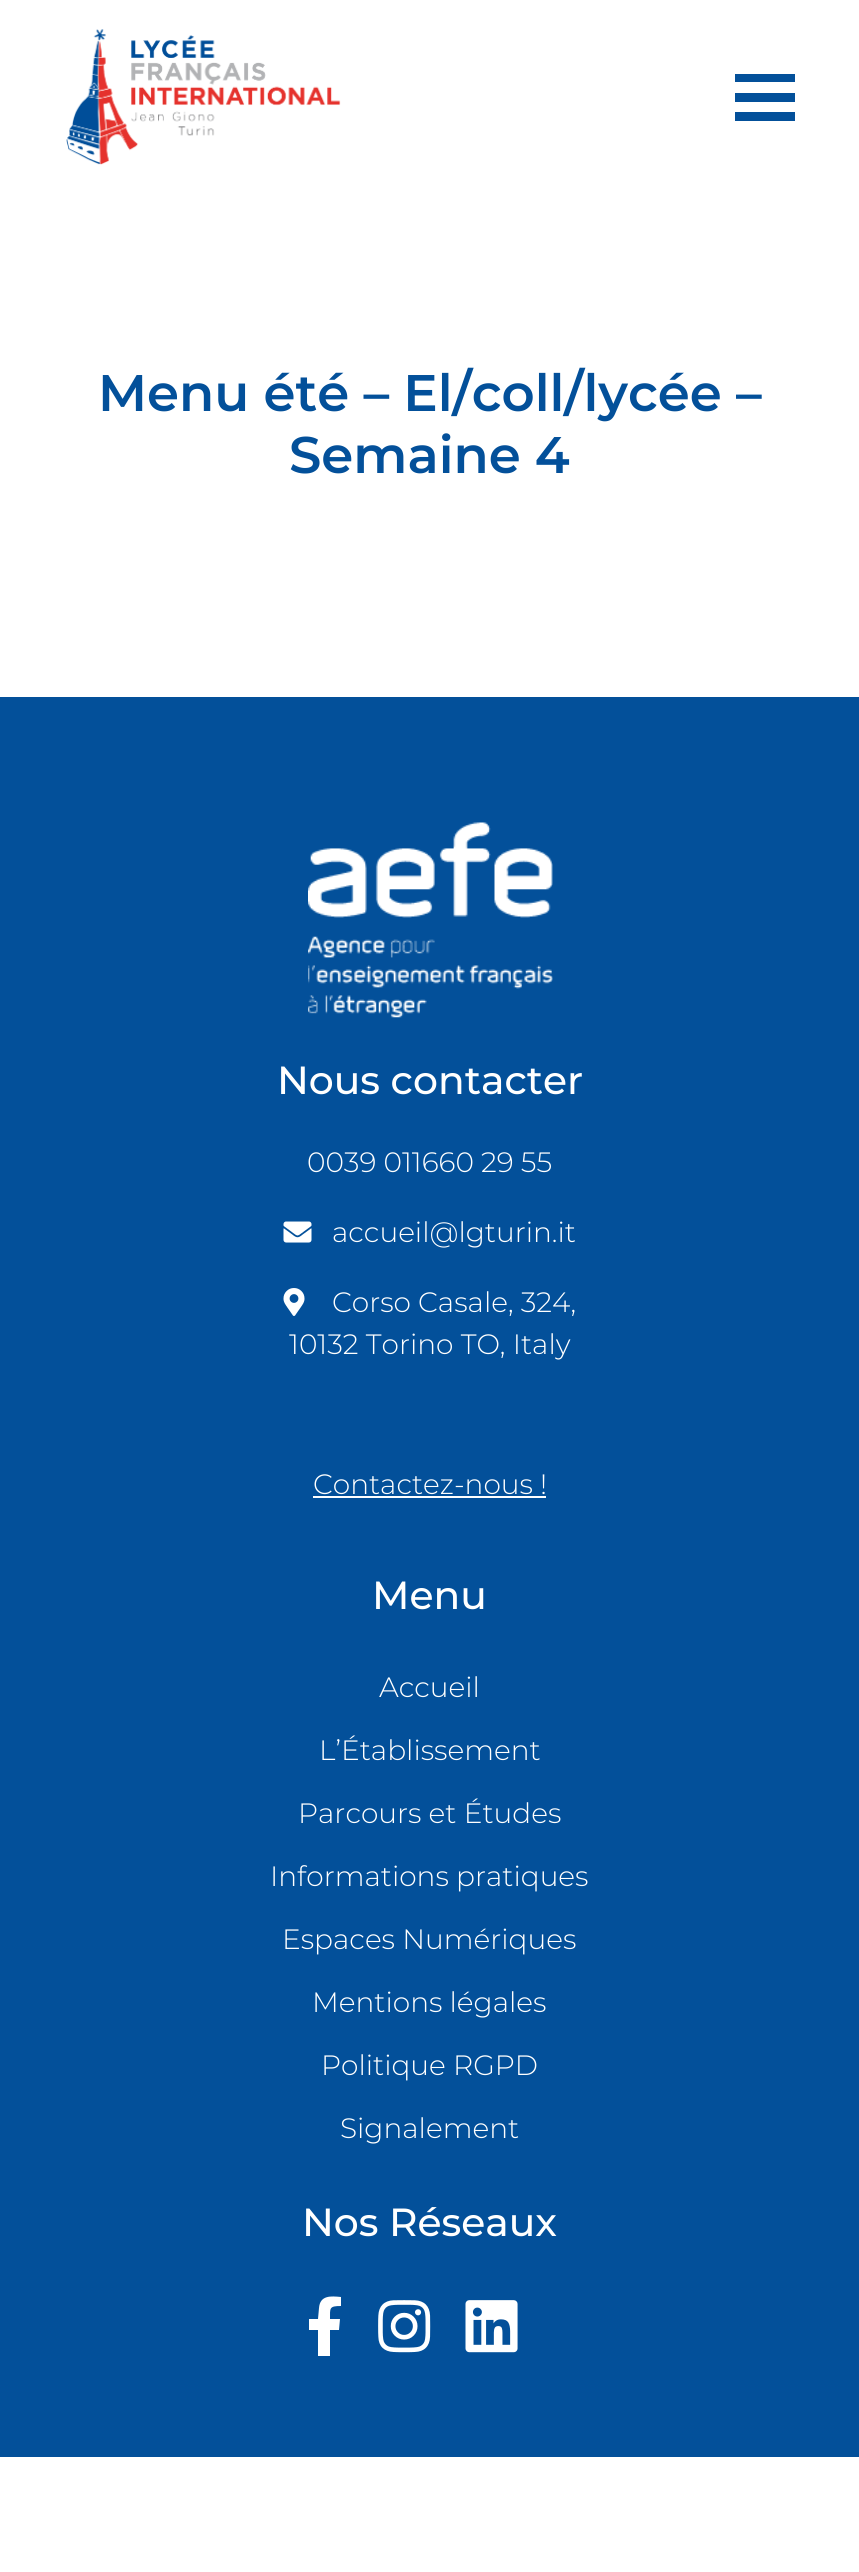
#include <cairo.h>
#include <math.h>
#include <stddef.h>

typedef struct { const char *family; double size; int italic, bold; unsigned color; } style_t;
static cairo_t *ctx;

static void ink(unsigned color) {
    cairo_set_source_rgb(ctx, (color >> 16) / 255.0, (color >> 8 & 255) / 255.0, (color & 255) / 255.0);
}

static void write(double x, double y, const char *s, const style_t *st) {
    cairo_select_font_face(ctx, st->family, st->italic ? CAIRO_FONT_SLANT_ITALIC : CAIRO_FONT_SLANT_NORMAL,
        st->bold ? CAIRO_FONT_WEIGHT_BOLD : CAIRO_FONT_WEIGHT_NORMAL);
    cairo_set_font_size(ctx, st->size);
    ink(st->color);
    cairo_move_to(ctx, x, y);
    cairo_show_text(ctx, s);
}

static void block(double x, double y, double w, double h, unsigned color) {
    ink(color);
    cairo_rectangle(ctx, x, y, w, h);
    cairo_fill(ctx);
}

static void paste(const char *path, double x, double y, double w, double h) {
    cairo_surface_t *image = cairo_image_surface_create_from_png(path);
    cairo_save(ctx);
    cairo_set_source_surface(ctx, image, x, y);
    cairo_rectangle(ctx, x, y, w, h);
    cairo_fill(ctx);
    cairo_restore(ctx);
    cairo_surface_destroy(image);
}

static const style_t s1 = {"Montserrat SemiBold", 51.4, 0, 0, 0x03509a};
static const style_t s2 = {"Montserrat Medium", 39.25, 0, 0, 0xffffff};
static const style_t s3 = {"Montserrat Light", 28, 0, 0, 0xffffff};

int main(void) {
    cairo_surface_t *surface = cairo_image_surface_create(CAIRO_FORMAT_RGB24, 859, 2572);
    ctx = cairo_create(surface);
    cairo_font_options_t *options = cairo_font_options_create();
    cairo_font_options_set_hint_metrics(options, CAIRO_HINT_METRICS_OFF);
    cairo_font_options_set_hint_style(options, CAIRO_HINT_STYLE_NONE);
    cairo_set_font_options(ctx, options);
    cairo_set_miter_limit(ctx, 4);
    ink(0xffffff);
    cairo_paint(ctx);
    paste("pic1.png", 66, 29, 275, 136);
    block(735, 74, 60, 8, 0x03509a);
    block(735, 93, 60, 9, 0x03509a);
    block(735, 112, 60, 9, 0x03509a);
    write(98, 411, "Menu été – El/coll/lycée –", &s1);
    write(289, 473, "Semaine 4", &s1);
    block(0, 697, 859, 1760, 0x03509a);
    paste("pic2.png", 308, 822, 245, 196);
    write(277, 1094, "Nous contacter", &s2);
    write(307, 1172, "0039 011660 29 55", &s3);
    paste("pic3.png", 283, 1221, 29, 22);
    write(332, 1242, "accueil@lgturin.it", &s3);
    paste("pic4.png", 283, 1288, 22, 28);
    write(332, 1312, "Corso Casale, 324,", &s3);
    write(289, 1354, "10132 Torino TO, Italy", &s3);
    write(313, 1494, "Contactez-nous !", &s3);
    block(313, 1496, 233, 2, 0xffffff);
    write(372, 1609, "Menu", &s2);
    write(379, 1697, "Accueil", &s3);
    write(319, 1760, "L’Établissement", &s3);
    write(298, 1823, "Parcours et Études", &s3);
    write(270, 1886, "Informations pratiques", &s3);
    write(282, 1949, "Espaces Numériques", &s3);
    write(312, 2012, "Mentions légales", &s3);
    write(321, 2075, "Politique RGPD", &s3);
    write(340, 2138, "Signalement", &s3);
    write(302, 2236, "Nos Réseaux", &s2);
    cairo_new_path(ctx);
    cairo_move_to(ctx, 339, 2330);
    cairo_line_to(ctx, 330, 2330);
    cairo_line_to(ctx, 330, 2356);
    cairo_line_to(ctx, 318, 2356);
    cairo_line_to(ctx, 318, 2330);
    cairo_line_to(ctx, 309, 2330);
    cairo_line_to(ctx, 309, 2319);
    cairo_line_to(ctx, 318, 2319);
    cairo_line_to(ctx, 319, 2308);
    cairo_curve_to(ctx, 320, 2295, 331, 2296, 341, 2297);
    cairo_line_to(ctx, 341, 2306);
    cairo_curve_to(ctx, 329, 2306, 330, 2308, 330, 2319);
    cairo_line_to(ctx, 340, 2319);
    cairo_close_path(ctx);
    cairo_fill(ctx);
    paste("pic5.png", 378, 2300, 53, 53);
    paste("pic6.png", 465, 2300, 53, 53);
    cairo_surface_write_to_png(surface, "screenshot.png");
    cairo_font_options_destroy(options);
    cairo_destroy(ctx);
    cairo_surface_destroy(surface);
    return 0;
}
